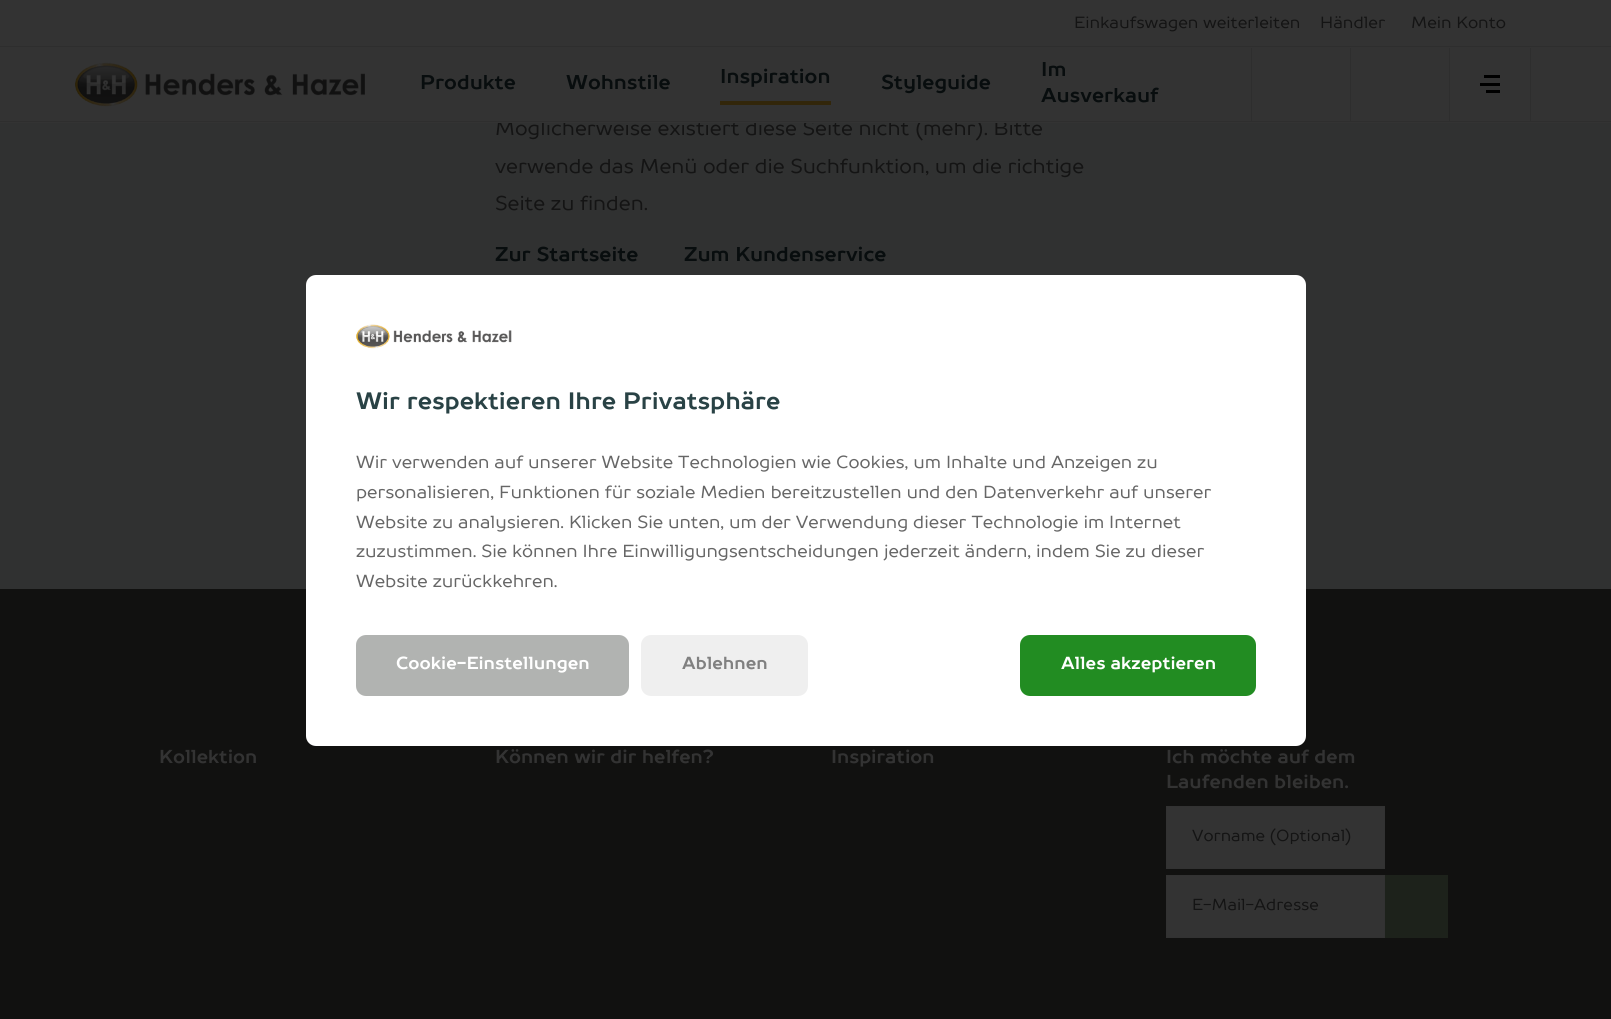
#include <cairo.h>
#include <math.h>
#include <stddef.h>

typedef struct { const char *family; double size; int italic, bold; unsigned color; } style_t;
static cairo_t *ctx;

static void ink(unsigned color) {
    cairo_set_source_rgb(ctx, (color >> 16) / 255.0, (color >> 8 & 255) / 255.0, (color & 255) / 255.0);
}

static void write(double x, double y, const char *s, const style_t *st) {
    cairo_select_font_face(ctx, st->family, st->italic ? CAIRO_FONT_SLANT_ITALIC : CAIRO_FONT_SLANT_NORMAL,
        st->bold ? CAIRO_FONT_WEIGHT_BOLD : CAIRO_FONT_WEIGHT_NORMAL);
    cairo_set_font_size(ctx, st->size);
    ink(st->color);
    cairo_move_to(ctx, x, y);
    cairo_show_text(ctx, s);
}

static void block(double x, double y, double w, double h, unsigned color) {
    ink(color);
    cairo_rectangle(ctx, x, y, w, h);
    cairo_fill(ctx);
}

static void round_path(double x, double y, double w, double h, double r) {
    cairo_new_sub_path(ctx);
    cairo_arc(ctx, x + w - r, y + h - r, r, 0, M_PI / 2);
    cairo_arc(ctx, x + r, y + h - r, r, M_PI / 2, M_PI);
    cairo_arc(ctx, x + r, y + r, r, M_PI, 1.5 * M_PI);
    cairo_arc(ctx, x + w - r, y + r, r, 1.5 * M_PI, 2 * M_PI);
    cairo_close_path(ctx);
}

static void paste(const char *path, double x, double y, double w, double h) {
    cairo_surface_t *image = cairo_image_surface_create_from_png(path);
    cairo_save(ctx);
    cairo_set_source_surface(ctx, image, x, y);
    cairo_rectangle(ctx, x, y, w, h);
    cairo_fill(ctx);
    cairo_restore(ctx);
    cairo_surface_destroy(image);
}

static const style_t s1 = {"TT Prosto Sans", 20, 0, 0, 0x141414};
static const style_t s2 = {"TT Prosto Sans", 16.25, 0, 0, 0x141414};
static const style_t s3 = {"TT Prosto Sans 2", 20, 0, 0, 0x080d0e};
static const style_t s4 = {"TT Prosto Sans 2", 18.75, 0, 0, 0x333333};
static const style_t s5 = {"TT Prosto Sans", 16, 0, 0, 0x141414};
static const style_t s6 = {"TT Prosto Sans 2", 23.75, 0, 0, 0x294245};
static const style_t s7 = {"TT Prosto Sans", 17.5, 0, 0, 0x666666};
static const style_t s8 = {"TT Prosto Sans 2", 17.5, 0, 0, 0xffffff};
static const style_t s9 = {"TT Prosto Sans 2", 17.5, 0, 0, 0x808080};

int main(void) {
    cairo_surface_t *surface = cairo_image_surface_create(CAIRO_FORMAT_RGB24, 1611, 1019);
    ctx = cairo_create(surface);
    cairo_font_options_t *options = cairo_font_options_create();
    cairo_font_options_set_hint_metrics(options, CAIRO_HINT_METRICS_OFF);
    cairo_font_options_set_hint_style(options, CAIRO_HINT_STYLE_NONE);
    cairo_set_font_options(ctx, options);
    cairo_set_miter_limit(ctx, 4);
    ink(0x303131);
    cairo_paint(ctx);
    write(495, 135, "Möglicherweise existiert diese Seite nicht (mehr). Bitte", &s1);
    block(0, 0, 1611, 123, 0x333333);
    block(0, 46, 1611, 1, 0x2e2e2e);
    write(1074, 28, "Einkaufswagen weiterleiten", &s2);
    write(1320, 28, "Händler", &s2);
    write(1411, 28, "Mein Konto", &s2);
    block(0, 121, 1611, 1, 0x2e2e2e);
    paste("pic1.png", 75, 62, 290, 45);
    write(420, 89, "Produkte", &s3);
    write(566, 89, "Wohnstile", &s3);
    write(720, 83, "Inspiration", &s3);
    block(720, 101, 111, 4, 0x32260a);
    write(881, 89, "Styleguide", &s3);
    write(1041, 76, "Im", &s3);
    write(1041, 102, "Ausverkauf", &s3);
    block(1350, 48, 1, 73, 0x2e2e2e);
    block(1251, 48, 1, 73, 0x2e2e2e);
    block(1449, 48, 1, 73, 0x2e2e2e);
    block(1530, 48, 1, 73, 0x2e2e2e);
    block(1484, 75, 16, 3, 0x000000);
    block(1480, 83, 20, 3, 0x000000);
    block(1486, 90, 14, 3, 0x000000);
    write(495, 173, "verwende das Menü oder die Suchfunktion, um die richtige", &s1);
    write(495, 210, "Seite zu finden.", &s1);
    write(495, 261, "Zur Startseite", &s3);
    write(684, 261, "Zum Kundenservice", &s3);
    block(0, 589, 1611, 430, 0x111110);
    write(159, 763, "Kollektion", &s4);
    write(495, 763, "Können wir dir helfen?", &s4);
    write(831, 763, "Inspiration", &s4);
    write(1166, 763, "Ich möchte auf dem", &s4);
    write(1166, 788, "Laufenden bleiben.", &s4);
    cairo_rectangle(ctx, 1166.5, 806.5, 218, 62);
    cairo_fill_preserve(ctx);
    ink(0x323232);
    cairo_set_line_width(ctx, 1);
    cairo_stroke(ctx);
    write(1192, 841, "Vorname (Optional)", &s5);
    ink(0x333333);
    cairo_rectangle(ctx, 1166.5, 875.5, 218, 62);
    cairo_fill_preserve(ctx);
    ink(0x323232);
    cairo_stroke(ctx);
    write(1192, 910, "E-Mail-Adresse", &s5);
    block(1385, 875, 63, 63, 0x1d221b);
    ink(0xffffff);
    round_path(306, 275, 1000, 471, 10);
    cairo_fill(ctx);
    paste("pic2.png", 356, 324, 156, 25);
    write(356, 409, "Wir respektieren Ihre Privatsphäre", &s6);
    write(356, 468, "Wir verwenden auf unserer Website Technologien wie Cookies, um Inhalte und Anzeigen zu", &s7);
    write(356, 498, "personalisieren, Funktionen für soziale Medien bereitzustellen und den Datenverkehr auf unserer", &s7);
    write(356, 528, "Website zu analysieren. Klicken Sie unten, um der Verwendung dieser Technologie im Internet", &s7);
    write(356, 557, "zuzustimmen. Sie können Ihre Einwilligungsentscheidungen jederzeit ändern, indem Sie zu dieser", &s7);
    write(356, 587, "Website zurückkehren.", &s7);
    ink(0xb1b3b1);
    round_path(356, 635, 273, 61, 10);
    cairo_fill(ctx);
    write(396, 669, "Cookie-Einstellungen", &s8);
    ink(0xefefef);
    round_path(641, 635, 167, 61, 10);
    cairo_fill(ctx);
    write(682, 669, "Ablehnen", &s9);
    ink(0x228c22);
    round_path(1020, 635, 236, 61, 10);
    cairo_fill(ctx);
    write(1061, 669, "Alles akzeptieren", &s8);
    cairo_surface_write_to_png(surface, "screenshot.png");
    cairo_font_options_destroy(options);
    cairo_destroy(ctx);
    cairo_surface_destroy(surface);
    return 0;
}
